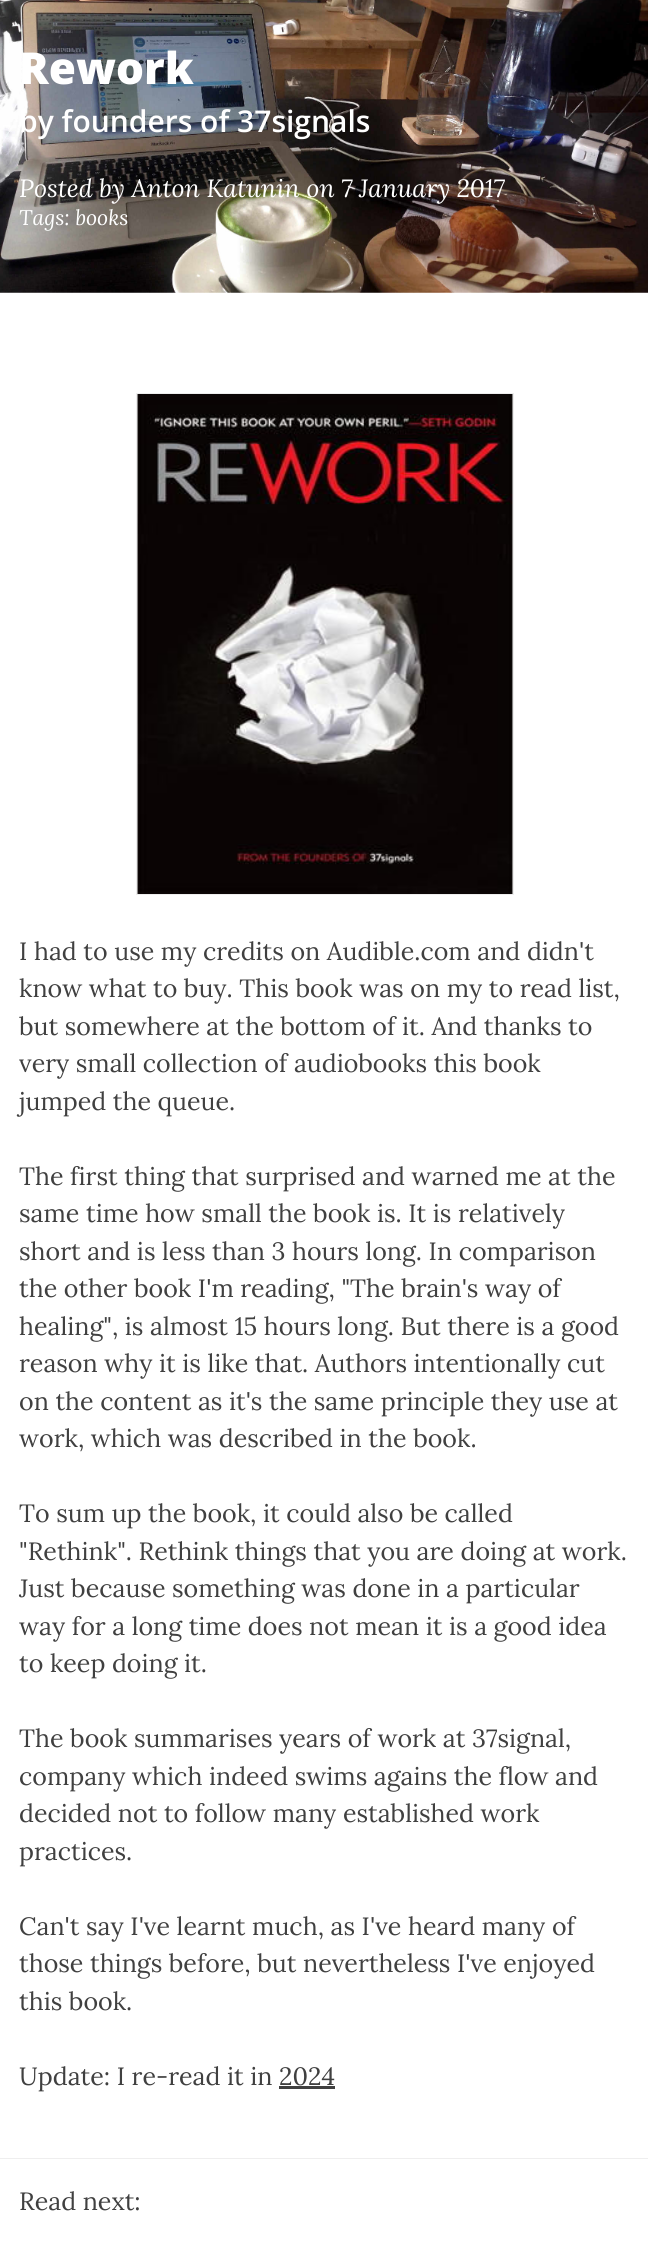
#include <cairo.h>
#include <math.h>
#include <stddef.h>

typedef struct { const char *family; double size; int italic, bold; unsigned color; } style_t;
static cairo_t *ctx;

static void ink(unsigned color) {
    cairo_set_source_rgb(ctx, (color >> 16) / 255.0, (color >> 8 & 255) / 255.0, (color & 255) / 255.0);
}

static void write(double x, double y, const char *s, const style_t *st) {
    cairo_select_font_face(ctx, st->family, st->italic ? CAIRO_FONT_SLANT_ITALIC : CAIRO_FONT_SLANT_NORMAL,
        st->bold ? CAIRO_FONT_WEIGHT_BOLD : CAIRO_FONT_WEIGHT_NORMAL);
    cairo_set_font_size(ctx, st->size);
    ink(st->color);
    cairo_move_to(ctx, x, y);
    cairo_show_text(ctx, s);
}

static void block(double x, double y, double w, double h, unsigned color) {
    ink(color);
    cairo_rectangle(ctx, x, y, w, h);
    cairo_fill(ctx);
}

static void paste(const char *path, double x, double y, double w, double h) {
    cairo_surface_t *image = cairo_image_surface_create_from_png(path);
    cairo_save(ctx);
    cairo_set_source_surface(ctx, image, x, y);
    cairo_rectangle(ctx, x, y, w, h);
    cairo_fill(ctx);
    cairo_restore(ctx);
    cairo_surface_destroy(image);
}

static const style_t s1 = {"Open Sans ExtraBold", 44, 0, 0, 0xffffff};
static const style_t s2 = {"Open Sans SemiBold", 30, 0, 0, 0xffffff};
static const style_t s3 = {"Lora", 25, 1, 0, 0xffffff};
static const style_t s4 = {"Lora", 21.25, 1, 0, 0xffffff};
static const style_t s5 = {"Lora", 25, 0, 0, 0x404040};

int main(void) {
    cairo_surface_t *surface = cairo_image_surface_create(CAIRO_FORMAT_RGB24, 648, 2251);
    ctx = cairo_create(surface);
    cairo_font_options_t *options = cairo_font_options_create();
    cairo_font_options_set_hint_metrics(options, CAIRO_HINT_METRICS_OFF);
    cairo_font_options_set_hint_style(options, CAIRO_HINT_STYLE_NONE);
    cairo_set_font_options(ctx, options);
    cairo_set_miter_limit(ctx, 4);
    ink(0xffffff);
    cairo_paint(ctx);
    paste("pic1.png", 0, 0, 648, 293);
    write(19, 84, "Rework", &s1);
    write(19, 132, "by founders of 37signals", &s2);
    write(19, 197, "Posted by Anton Katunin on 7 January 2017", &s3);
    write(19, 225, "Tags: books", &s4);
    cairo_rectangle(ctx, 136.5, 393.5, 377, 501);
    ink(0xeeeeee);
    cairo_set_line_width(ctx, 1);
    cairo_stroke(ctx);
    paste("pic2.png", 137, 394, 376, 500);
    write(19, 960, "I had to use my credits on Audible.com and didn't", &s5);
    write(19, 997, "know what to buy. This book was on my to read list,", &s5);
    write(19, 1035, "but somewhere at the bottom of it. And thanks to", &s5);
    write(19, 1072, "very small collection of audiobooks this book", &s5);
    write(19, 1110, "jumped the queue.", &s5);
    write(19, 1185, "The first thing that surprised and warned me at the", &s5);
    write(19, 1222, "same time how small the book is. It is relatively", &s5);
    write(19, 1260, "short and is less than 3 hours long. In comparison", &s5);
    write(19, 1297, "the other book I'm reading, \"The brain's way of", &s5);
    write(19, 1335, "healing\", is almost 15 hours long. But there is a good", &s5);
    write(19, 1372, "reason why it is like that. Authors intentionally cut", &s5);
    write(19, 1410, "on the content as it's the same principle they use at", &s5);
    write(19, 1447, "work, which was described in the book.", &s5);
    write(19, 1522, "To sum up the book, it could also be called", &s5);
    write(19, 1560, "\"Rethink\". Rethink things that you are doing at work.", &s5);
    write(19, 1597, "Just because something was done in a particular", &s5);
    write(19, 1635, "way for a long time does not mean it is a good idea", &s5);
    write(19, 1672, "to keep doing it.", &s5);
    write(19, 1747, "The book summarises years of work at 37signal,", &s5);
    write(19, 1785, "company which indeed swims agains the flow and", &s5);
    write(19, 1822, "decided not to follow many established work", &s5);
    write(19, 1860, "practices.", &s5);
    write(19, 1935, "Can't say I've learnt much, as I've heard many of", &s5);
    write(19, 1972, "those things before, but nevertheless I've enjoyed", &s5);
    write(19, 2010, "this book.", &s5);
    write(19, 2085, "Update: I re-read it in 2024", &s5);
    block(279, 2086, 56, 3, 0x404040);
    block(0, 2158, 648, 1, 0xeeeeee);
    write(19, 2210, "Read next:", &s5);
    cairo_surface_write_to_png(surface, "screenshot.png");
    cairo_font_options_destroy(options);
    cairo_destroy(ctx);
    cairo_surface_destroy(surface);
    return 0;
}
